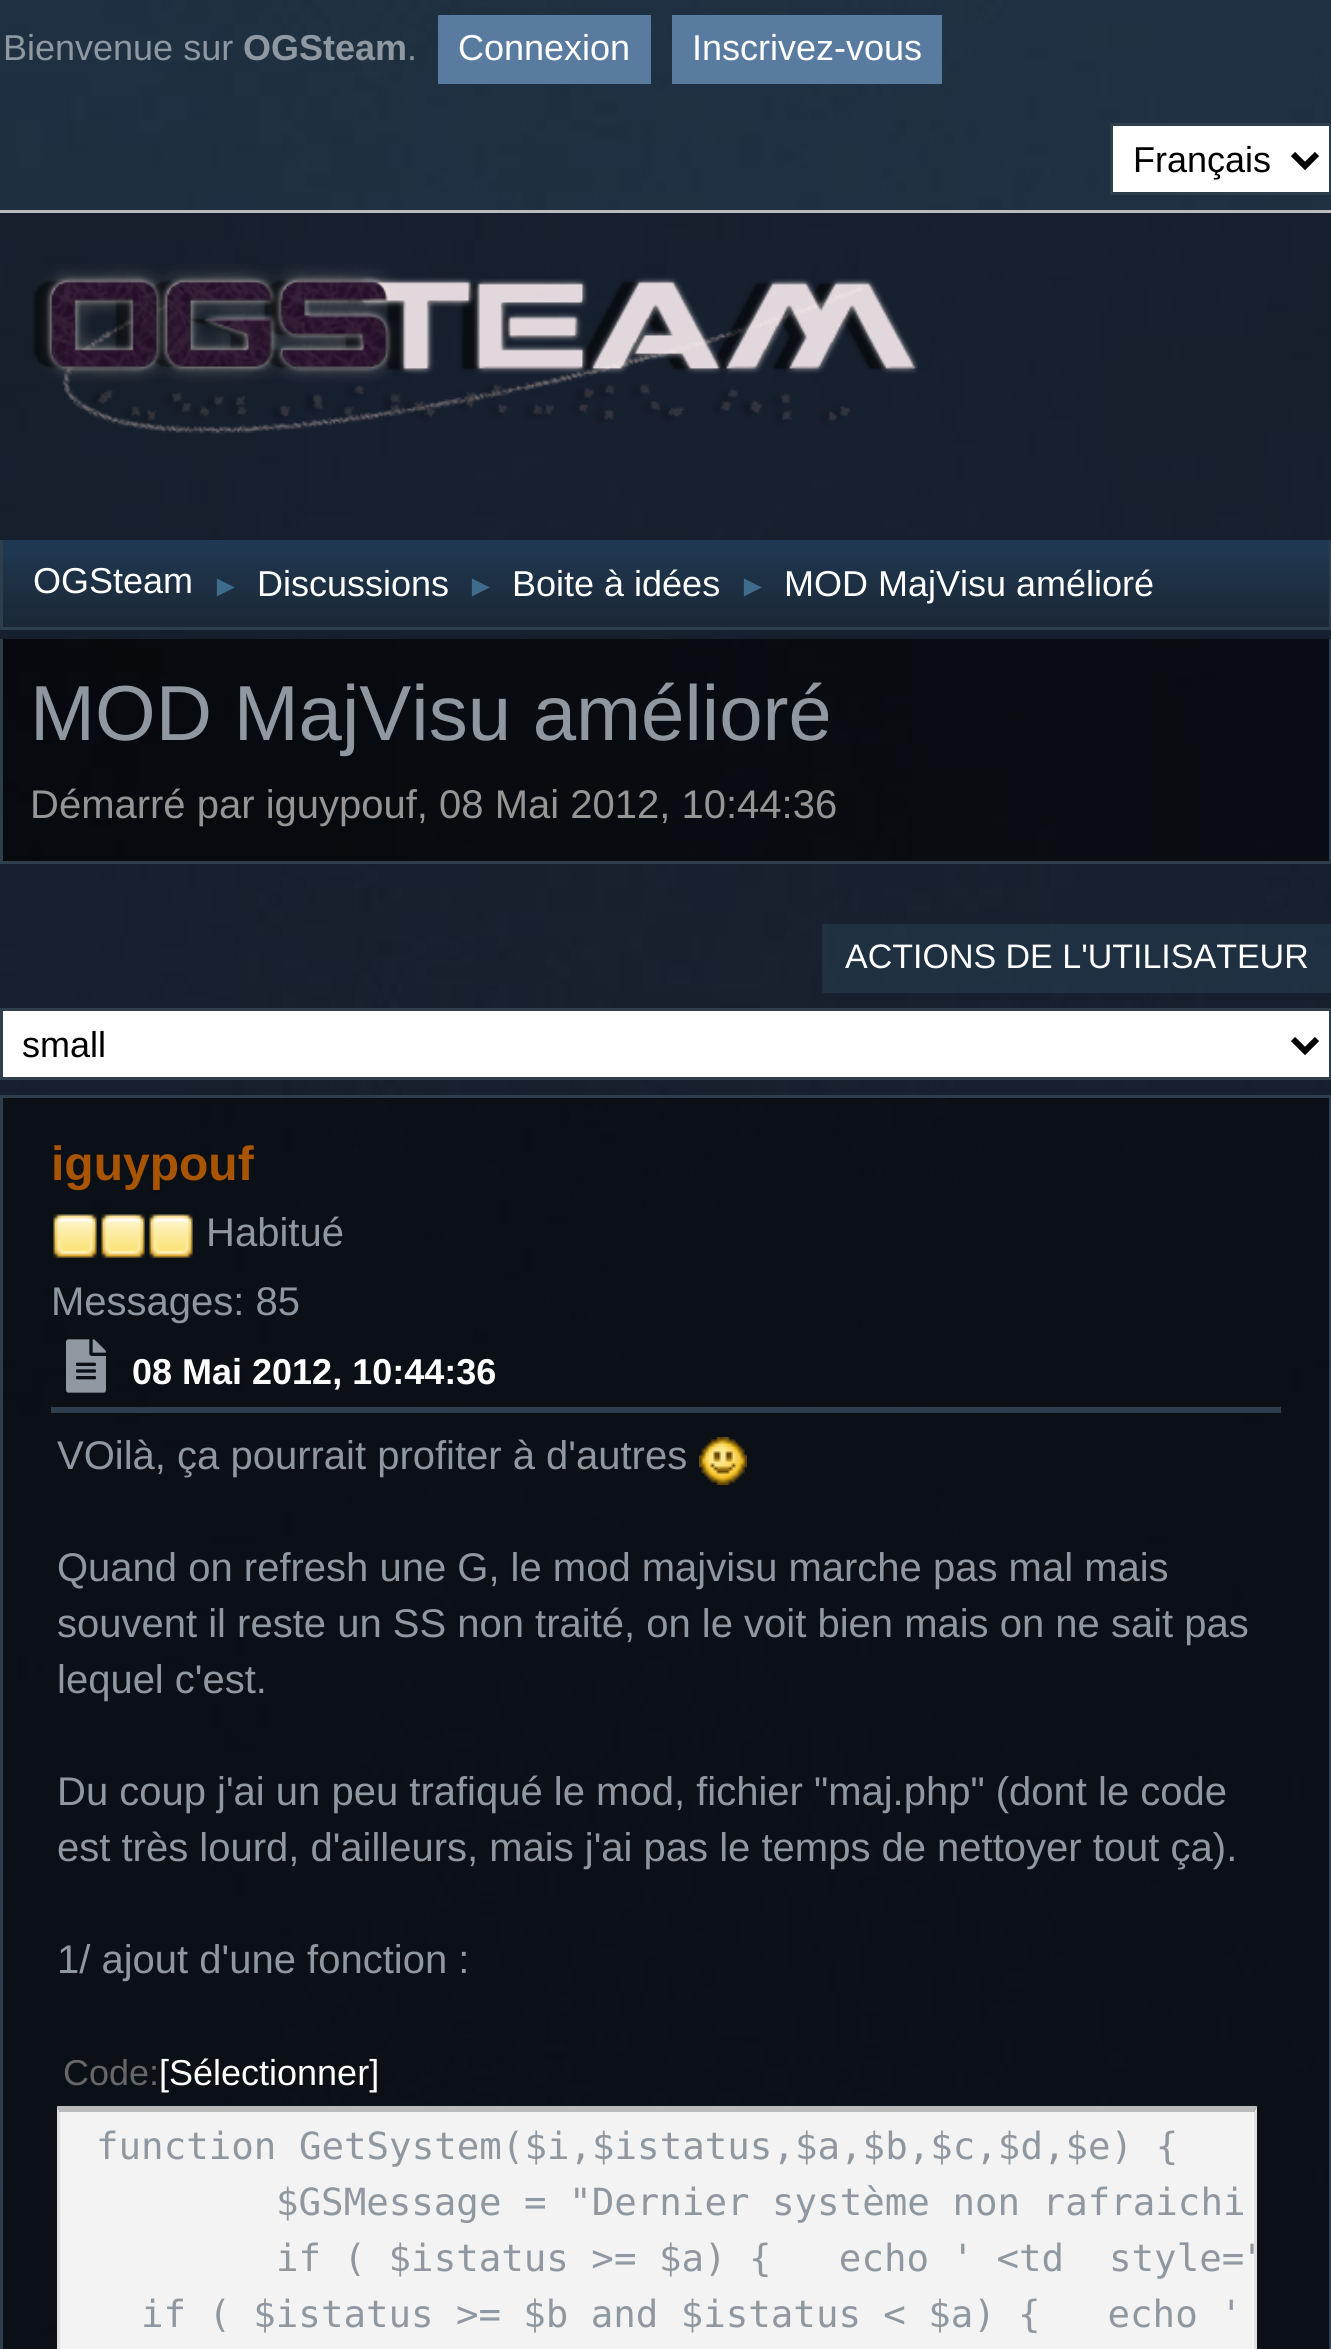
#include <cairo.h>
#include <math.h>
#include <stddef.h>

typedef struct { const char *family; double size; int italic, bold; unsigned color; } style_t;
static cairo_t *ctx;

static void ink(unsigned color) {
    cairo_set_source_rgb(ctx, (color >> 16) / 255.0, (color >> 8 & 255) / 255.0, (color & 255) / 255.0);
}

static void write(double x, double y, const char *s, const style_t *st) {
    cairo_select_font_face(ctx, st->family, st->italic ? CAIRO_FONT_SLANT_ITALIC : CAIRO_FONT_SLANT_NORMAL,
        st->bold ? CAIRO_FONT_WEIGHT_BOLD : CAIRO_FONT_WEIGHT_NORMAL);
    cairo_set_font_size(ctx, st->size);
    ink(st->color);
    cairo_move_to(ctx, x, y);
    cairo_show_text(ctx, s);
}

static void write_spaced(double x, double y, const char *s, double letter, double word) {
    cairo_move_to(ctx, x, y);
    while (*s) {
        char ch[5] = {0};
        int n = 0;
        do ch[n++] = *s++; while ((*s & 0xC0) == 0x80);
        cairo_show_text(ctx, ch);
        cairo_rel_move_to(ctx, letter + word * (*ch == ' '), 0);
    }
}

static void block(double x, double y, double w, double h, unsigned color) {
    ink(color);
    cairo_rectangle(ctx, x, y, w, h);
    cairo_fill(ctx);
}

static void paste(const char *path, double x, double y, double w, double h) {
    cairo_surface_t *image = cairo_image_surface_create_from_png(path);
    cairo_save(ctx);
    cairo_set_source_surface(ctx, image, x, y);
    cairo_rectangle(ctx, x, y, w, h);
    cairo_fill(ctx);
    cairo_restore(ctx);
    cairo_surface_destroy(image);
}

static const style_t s1 = {"Liberation Sans", 36, 0, 0, 0x8f98a0};
static const style_t s2 = {"Liberation Sans", 36, 0, 1, 0x8f98a0};
static const style_t s3 = {"Liberation Sans", 36, 0, 0, 0xffffff};
static const style_t s4 = {"Liberation Sans", 36, 0, 0, 0x000000};
static const style_t s5 = {"Liberation Sans", 30, 0, 0, 0x3f6b8c};
static const style_t s6 = {"Liberation Sans", 78, 0, 0, 0x8f98a0};
static const style_t s7 = {"Liberation Sans", 40, 0, 0, 0x959595};
static const style_t s8 = {"Liberation Sans", 34, 0, 0, 0xffffff};
static const style_t s9 = {"Liberation Sans", 48, 0, 1, 0xa85400};
static const style_t s10 = {"Liberation Sans", 40, 0, 0, 0x8f98a0};
static const style_t s11 = {"Liberation Sans", 36, 0, 1, 0xffffff};
static const style_t s12 = {"Liberation Sans", 36, 0, 0, 0x666666};
static const style_t s13 = {"DejaVu Sans Mono", 37.45, 0, 0, 0x8f98a0};

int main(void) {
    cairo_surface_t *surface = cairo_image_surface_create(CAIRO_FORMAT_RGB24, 1331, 2349);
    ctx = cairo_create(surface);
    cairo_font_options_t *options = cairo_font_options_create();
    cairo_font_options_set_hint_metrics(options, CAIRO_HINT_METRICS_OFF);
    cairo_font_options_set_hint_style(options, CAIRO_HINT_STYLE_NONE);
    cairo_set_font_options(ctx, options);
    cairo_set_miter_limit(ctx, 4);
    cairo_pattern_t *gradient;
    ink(0xffffff);
    cairo_paint(ctx);
    paste("pic1.png", 0, 0, 1331, 2349);
    cairo_set_source_rgba(ctx, 0.404, 0.757, 0.961, 0.1);
    cairo_rectangle(ctx, 0, 0, 1331, 210);
    cairo_fill(ctx);
    block(0, 210, 1331, 3, 0xbbbbbb);
    write(3, 60, "Bienvenue sur", &s1);
    write(243, 60, "OGSteam", &s2);
    write(407, 60, ".", &s1);
    block(438, 15, 213, 69, 0x597b9f);
    write(458, 60, "Connexion", &s3);
    block(672, 15, 270, 69, 0x597b9f);
    write(692, 60, "Inscrivez-vous", &s3);
    cairo_rectangle(ctx, 1111.5, 124.5, 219, 69);
    cairo_fill_preserve(ctx);
    ink(0x2e3e4c);
    cairo_set_line_width(ctx, 3);
    cairo_stroke(ctx);
    cairo_new_path(ctx);
    cairo_move_to(ctx, 1293, 154);
    cairo_line_to(ctx, 1305, 166);
    cairo_line_to(ctx, 1317, 154);
    ink(0x000000);
    cairo_set_line_width(ctx, 6);
    cairo_stroke(ctx);
    write(1133, 172, "Français", &s4);
    paste("pic2.png", 32, 264, 886, 171);
    gradient = cairo_pattern_create_linear(666, 540, 666, 627);
    cairo_pattern_add_color_stop_rgba(gradient, 0, 0.122, 0.224, 0.329, 1);
    cairo_pattern_add_color_stop_rgba(gradient, 1, 0.106, 0.153, 0.204, 1);
    cairo_set_source(ctx, gradient);
    cairo_pattern_destroy(gradient);
    cairo_rectangle(ctx, 3, 540, 1326, 87);
    cairo_fill(ctx);
    block(1329, 540, 2, 90, 0x2e3e4c);
    block(0, 627, 1331, 3, 0x2e3e4c);
    block(0, 540, 3, 90, 0x2e3e4c);
    write(33, 593, "OGSteam", &s3);
    write(211, 596, "►", &s5);
    write(257, 596, "Discussions", &s3);
    write(466, 596, "►", &s5);
    write(512, 596, "Boite à idées", &s3);
    write(738, 596, "►", &s5);
    write(784, 596, "MOD MajVisu amélioré", &s3);
    block(1329, 639, 2, 225, 0x2e3e4c);
    block(0, 861, 1331, 3, 0x2e3e4c);
    block(0, 639, 3, 225, 0x2e3e4c);
    write(30, 740, "MOD MajVisu amélioré", &s6);
    write(30, 818, "Démarré par iguypouf, 08 Mai 2012, 10:44:36", &s7);
    cairo_set_source_rgba(ctx, 0.404, 0.757, 0.961, 0.1);
    cairo_rectangle(ctx, 822, 924, 509, 69);
    cairo_fill(ctx);
    write(845, 968, "ACTIONS DE L'UTILISATEUR", &s8);
    cairo_rectangle(ctx, 1.5, 1009.5, 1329, 69);
    cairo_fill_preserve(ctx);
    ink(0x2e3e4c);
    cairo_set_line_width(ctx, 3);
    cairo_stroke(ctx);
    cairo_new_path(ctx);
    cairo_move_to(ctx, 1293, 1039);
    cairo_line_to(ctx, 1305, 1051);
    cairo_line_to(ctx, 1317, 1039);
    ink(0x000000);
    cairo_set_line_width(ctx, 6);
    cairo_stroke(ctx);
    write(22, 1057, "small", &s4);
    cairo_set_source_rgba(ctx, 0, 0, 0, 0.5);
    cairo_rectangle(ctx, 1.5, 1096.5, 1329, 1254);
    cairo_fill_preserve(ctx);
    ink(0x2e3e4c);
    cairo_set_line_width(ctx, 3);
    cairo_stroke(ctx);
    write(51, 1180, "iguypouf", &s9);
    paste("pic3.png", 53, 1214, 44, 44);
    paste("pic3.png", 101, 1214, 44, 44);
    paste("pic3.png", 149, 1214, 44, 44);
    write(206, 1246, "Habitué", &s10);
    write(51, 1315, "Messages: 85", &s10);
    paste("pic4.png", 66, 1339, 40, 54);
    write(132, 1384, "08 Mai 2012, 10:44:36", &s11);
    block(51, 1407, 1230, 6, 0x2e3e4c);
    write(57, 1469, "VOilà, ça pourrait profiter à d'autres", &s10);
    paste("pic5.png", 699, 1437, 48, 48);
    write(57, 1581, "Quand on refresh une G, le mod majvisu marche pas mal mais", &s10);
    write(57, 1637, "souvent il reste un SS non traité, on le voit bien mais on ne sait pas", &s10);
    write(57, 1693, "lequel c'est.", &s10);
    write(57, 1805, "Du coup j'ai un peu trafiqué le mod, fichier \"maj.php\" (dont le code", &s10);
    write(57, 1861, "est très lourd, d'ailleurs, mais j'ai pas le temps de nettoyer tout ça).", &s10);
    write(57, 1973, "1/ ajout d'une fonction :", &s10);
    write(63, 2085, "Code:", &s12);
    write(159, 2085, "[Sélectionner]", &s3);
    block(60, 2112, 1194, 237, 0xf3f3f3);
    ink(0xbbbbbb);
    cairo_new_path(ctx);
    cairo_move_to(ctx, 57, 2106);
    cairo_line_to(ctx, 1257, 2106);
    cairo_line_to(ctx, 1254, 2112);
    cairo_line_to(ctx, 60, 2112);
    cairo_close_path(ctx);
    cairo_fill(ctx);
    ink(0xdfdfdf);
    cairo_new_path(ctx);
    cairo_move_to(ctx, 1257, 2106);
    cairo_line_to(ctx, 1257, 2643);
    cairo_line_to(ctx, 1254, 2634);
    cairo_line_to(ctx, 1254, 2112);
    cairo_close_path(ctx);
    cairo_fill(ctx);
    cairo_new_path(ctx);
    cairo_move_to(ctx, 57, 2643);
    cairo_line_to(ctx, 57, 2106);
    cairo_line_to(ctx, 60, 2112);
    cairo_line_to(ctx, 60, 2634);
    cairo_close_path(ctx);
    cairo_fill(ctx);
    write(96, 2159, "function GetSystem($i,$istatus,$a,$b,$c,$d,$e) {", &s13);
    write(276, 2215, "$GSMessage = \"Dernier système non rafraichi", &s13);
    cairo_save(ctx);
    cairo_rectangle(ctx, 60, 2112, 1194, 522);
    cairo_clip(ctx);
    write_spaced(276, 2271, "if ( $istatus >= $a) {   echo ' <td  style=\"", 0, -0.1);
    cairo_restore(ctx);
    write_spaced(141, 2327, "if ( $istatus >= $b and $istatus < $a) {   echo '", 0, -0.25);
    cairo_surface_write_to_png(surface, "screenshot.png");
    cairo_font_options_destroy(options);
    cairo_destroy(ctx);
    cairo_surface_destroy(surface);
    return 0;
}
